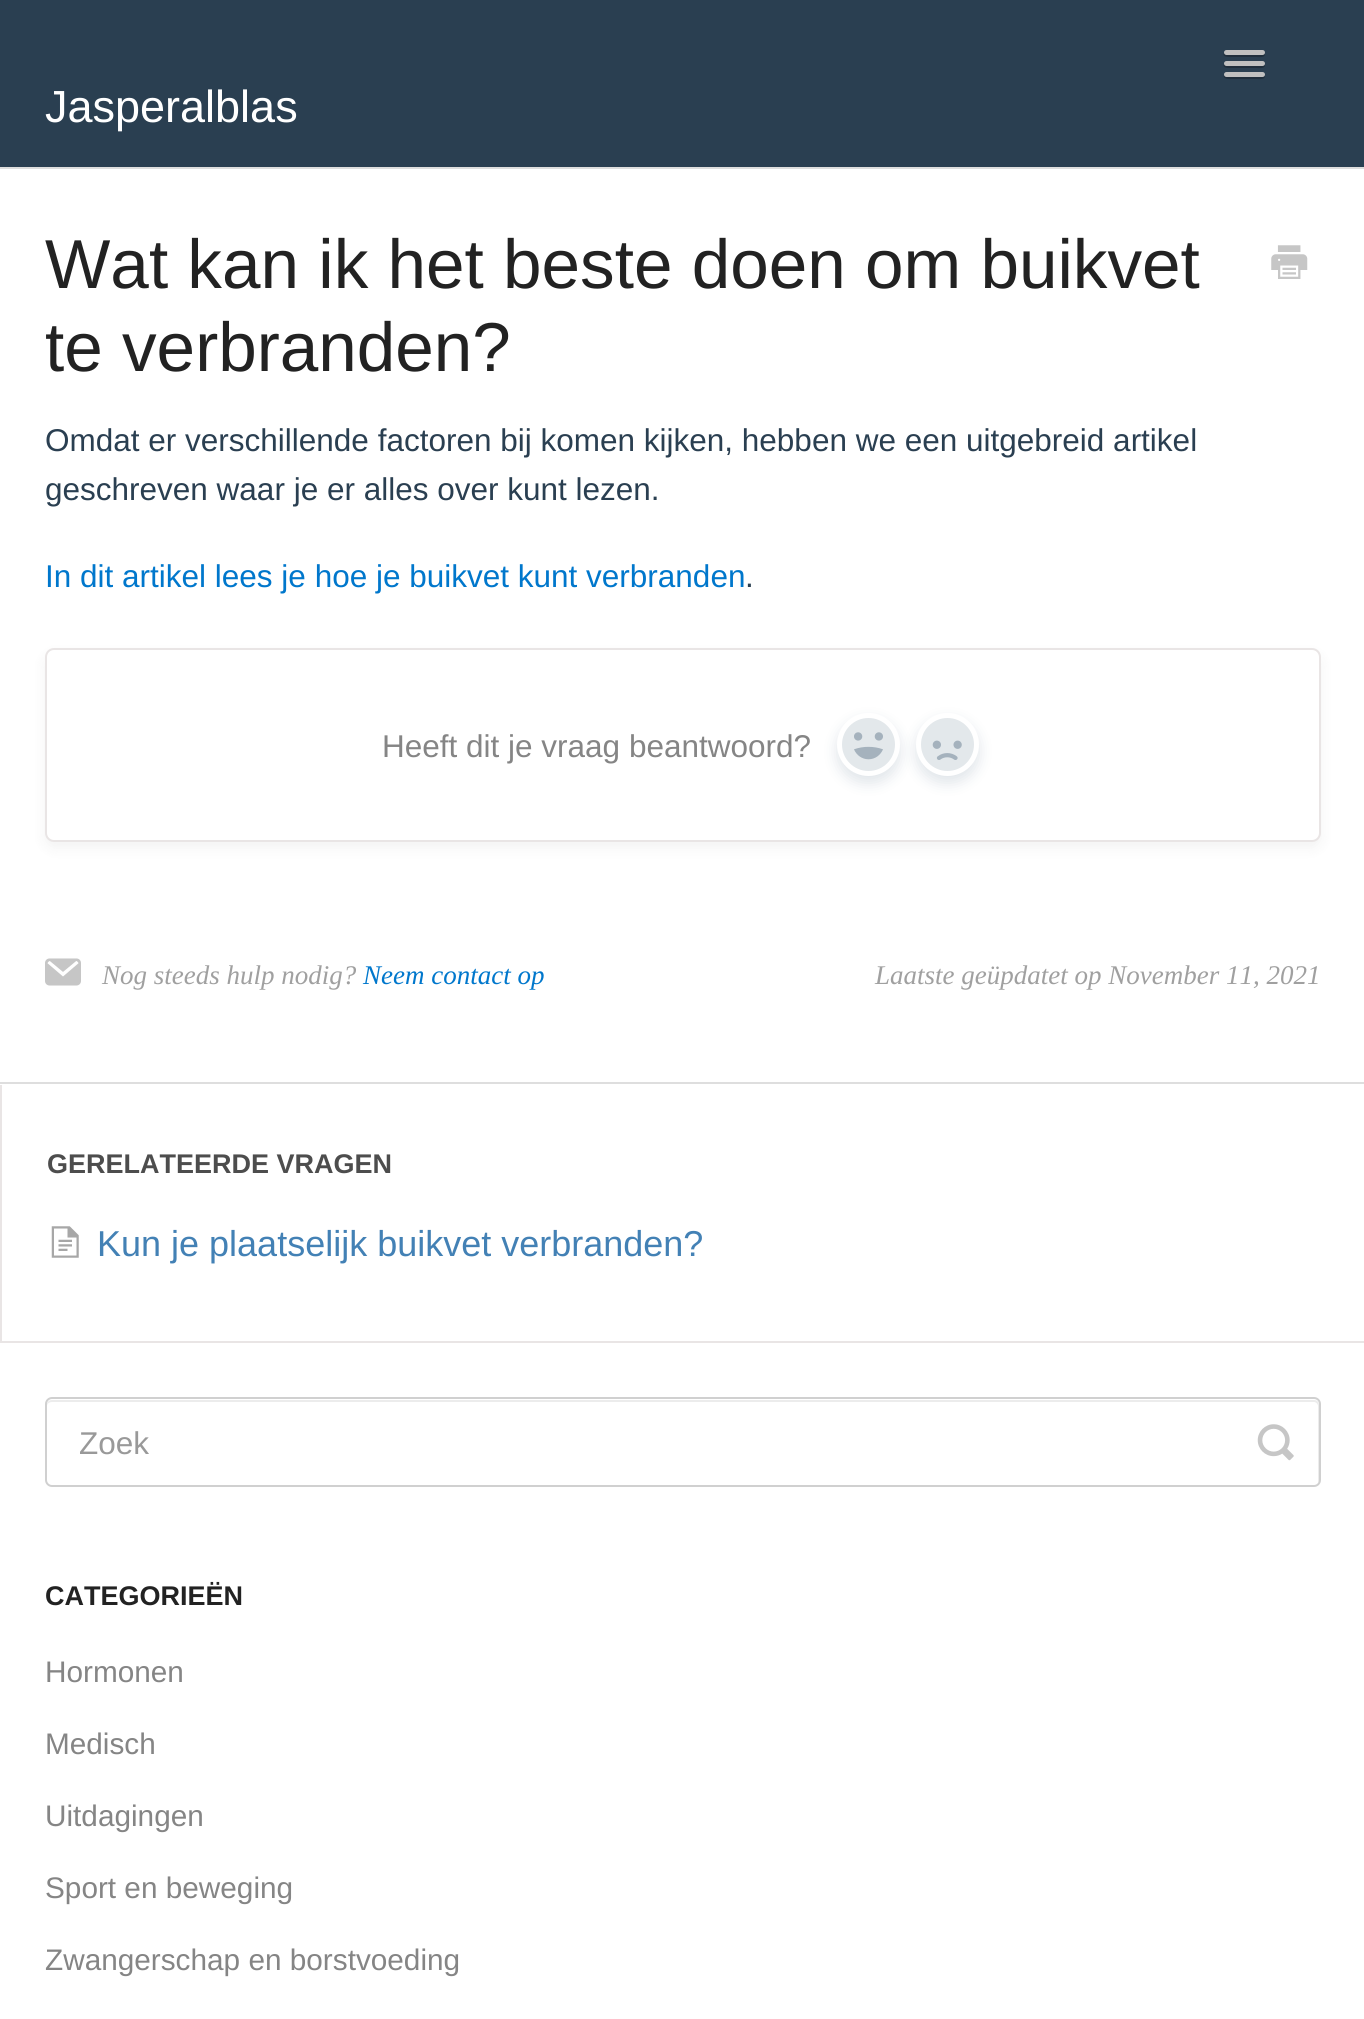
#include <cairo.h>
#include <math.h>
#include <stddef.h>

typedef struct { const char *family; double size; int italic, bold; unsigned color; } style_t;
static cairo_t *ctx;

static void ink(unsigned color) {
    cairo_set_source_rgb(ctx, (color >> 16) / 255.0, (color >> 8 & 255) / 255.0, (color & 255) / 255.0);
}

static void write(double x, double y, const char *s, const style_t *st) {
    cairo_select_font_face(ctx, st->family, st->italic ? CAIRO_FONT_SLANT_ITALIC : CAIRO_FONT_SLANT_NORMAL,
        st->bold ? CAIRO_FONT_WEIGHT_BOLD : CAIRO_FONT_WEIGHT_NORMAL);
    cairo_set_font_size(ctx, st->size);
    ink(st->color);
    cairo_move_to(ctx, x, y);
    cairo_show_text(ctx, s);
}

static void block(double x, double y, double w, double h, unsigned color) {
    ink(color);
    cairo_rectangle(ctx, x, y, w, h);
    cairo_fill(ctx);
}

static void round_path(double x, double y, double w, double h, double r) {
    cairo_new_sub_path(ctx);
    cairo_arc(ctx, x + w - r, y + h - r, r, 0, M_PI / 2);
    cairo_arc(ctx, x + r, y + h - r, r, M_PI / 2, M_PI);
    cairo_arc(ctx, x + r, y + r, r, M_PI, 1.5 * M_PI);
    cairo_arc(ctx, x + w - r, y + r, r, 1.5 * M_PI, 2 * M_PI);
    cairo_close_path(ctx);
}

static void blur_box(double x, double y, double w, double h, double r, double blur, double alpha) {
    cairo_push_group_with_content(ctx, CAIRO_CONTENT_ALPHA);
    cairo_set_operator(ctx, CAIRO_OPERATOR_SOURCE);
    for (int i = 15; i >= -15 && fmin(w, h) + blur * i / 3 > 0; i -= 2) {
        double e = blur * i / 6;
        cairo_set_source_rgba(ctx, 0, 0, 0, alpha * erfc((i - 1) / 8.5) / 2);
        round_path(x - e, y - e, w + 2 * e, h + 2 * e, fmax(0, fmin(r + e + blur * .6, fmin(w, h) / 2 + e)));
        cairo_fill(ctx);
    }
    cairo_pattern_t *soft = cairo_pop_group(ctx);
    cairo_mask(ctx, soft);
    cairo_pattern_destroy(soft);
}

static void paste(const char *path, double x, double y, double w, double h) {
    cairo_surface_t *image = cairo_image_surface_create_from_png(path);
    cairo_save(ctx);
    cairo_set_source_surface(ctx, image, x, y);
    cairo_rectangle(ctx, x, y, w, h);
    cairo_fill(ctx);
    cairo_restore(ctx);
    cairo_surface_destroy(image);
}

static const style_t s1 = {"Liberation Sans", 45, 0, 0, 0xffffff};
static const style_t s2 = {"Liberation Sans", 69.25, 0, 0, 0x222222};
static const style_t s3 = {"Liberation Sans", 31.5, 0, 0, 0x2a3f51};
static const style_t s4 = {"Liberation Sans", 31.5, 0, 0, 0x0077cc};
static const style_t s5 = {"Liberation Sans", 31.5, 0, 0, 0x858585};
static const style_t s6 = {"Liberation Serif", 27, 1, 0, 0xa0a0a0};
static const style_t s7 = {"Liberation Serif", 27, 1, 0, 0x0077cc};
static const style_t s8 = {"Liberation Sans", 27, 0, 1, 0x4d4d4d};
static const style_t s9 = {"Liberation Sans", 36, 0, 0, 0x4381b5};
static const style_t s10 = {"Liberation Sans", 31.5, 0, 0, 0x999999};
static const style_t s11 = {"Liberation Sans", 27, 0, 1, 0x222222};
static const style_t s12 = {"Liberation Sans", 29.75, 0, 0, 0x858585};

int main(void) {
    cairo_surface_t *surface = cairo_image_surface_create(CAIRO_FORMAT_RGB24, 1364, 2019);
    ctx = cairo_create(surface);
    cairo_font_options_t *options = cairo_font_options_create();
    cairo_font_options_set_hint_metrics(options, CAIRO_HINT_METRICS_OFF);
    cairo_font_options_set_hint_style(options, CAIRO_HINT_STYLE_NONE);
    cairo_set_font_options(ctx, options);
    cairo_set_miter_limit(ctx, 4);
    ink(0xffffff);
    cairo_paint(ctx);
    block(0, 0, 1364, 167, 0x2a3f51);
    ink(0x202f3d);
    cairo_new_path(ctx);
    cairo_move_to(ctx, 1224, 53);
    cairo_curve_to(ctx, 1221, 58, 1232, 57, 1232, 57);
    cairo_line_to(ctx, 1256, 57);
    cairo_curve_to(ctx, 1258, 57, 1264, 58, 1265, 55);
    cairo_line_to(ctx, 1264, 53);
    cairo_line_to(ctx, 1263, 54);
    cairo_line_to(ctx, 1226, 54);
    cairo_close_path(ctx);
    cairo_fill(ctx);
    ink(0xc0c0c0);
    round_path(1224, 50, 41, 5, 2.5);
    cairo_fill(ctx);
    ink(0x202f3d);
    cairo_new_path(ctx);
    cairo_move_to(ctx, 1224, 64);
    cairo_curve_to(ctx, 1221, 69, 1232, 68, 1232, 68);
    cairo_line_to(ctx, 1256, 68);
    cairo_curve_to(ctx, 1258, 68, 1264, 69, 1265, 66);
    cairo_line_to(ctx, 1264, 64);
    cairo_line_to(ctx, 1263, 65);
    cairo_line_to(ctx, 1226, 65);
    cairo_close_path(ctx);
    cairo_fill(ctx);
    ink(0xc0c0c0);
    round_path(1224, 61, 41, 5, 2.5);
    cairo_fill(ctx);
    ink(0x202f3d);
    cairo_new_path(ctx);
    cairo_move_to(ctx, 1224, 75);
    cairo_curve_to(ctx, 1222, 80, 1232, 79, 1232, 79);
    cairo_line_to(ctx, 1256, 79);
    cairo_curve_to(ctx, 1258, 79, 1264, 80, 1265, 77);
    cairo_line_to(ctx, 1264, 75);
    cairo_curve_to(ctx, 1264, 76, 1263, 76, 1262, 76);
    cairo_line_to(ctx, 1226, 76);
    cairo_curve_to(ctx, 1225, 76, 1225, 76, 1224, 75);
    cairo_close_path(ctx);
    cairo_fill(ctx);
    ink(0xc0c0c0);
    round_path(1224, 72, 41, 5, 2.5);
    cairo_fill(ctx);
    write(45, 122, "Jasperalblas", &s1);
    block(0, 167, 1364, 2, 0xdedede);
    block(0, 1082, 1364, 2, 0xdedede);
    write(45, 288, "Wat kan ik het beste doen om buikvet", &s2);
    write(45, 371, "te verbranden?", &s2);
    paste("pic1.png", 1271, 245, 37, 34);
    write(45, 451, "Omdat er verschillende factoren bij komen kijken, hebben we een uitgebreid artikel", &s3);
    write(45, 500, "geschreven waar je er alles over kunt lezen.", &s3);
    write(45, 587, "In dit artikel lees je hoe je buikvet kunt verbranden", &s4);
    write(745, 587, ".", &s3);
    ink(0x000000);
    blur_box(45, 655, 1276, 193, 9, 7, 0.05);
    ink(0xffffff);
    round_path(46, 649, 1274, 192, 8);
    cairo_fill_preserve(ctx);
    ink(0xe9e5e5);
    cairo_stroke(ctx);
    write(382, 757, "Heeft dit je vraag beantwoord?", &s5);
    ink(0xc1cbd4);
    blur_box(837, 720, 63, 63, 31.5, 7, 0.5);
    ink(0xe3e8eb);
    cairo_arc(ctx, 868.5, 744.5, 29, 0, 2 * M_PI);
    cairo_fill_preserve(ctx);
    ink(0xffffff);
    cairo_set_line_width(ctx, 5);
    cairo_stroke(ctx);
    paste("pic2.png", 854, 732, 29, 28);
    ink(0xc1cbd4);
    blur_box(916, 720, 63, 63, 31.5, 7, 0.5);
    ink(0xe3e8eb);
    cairo_arc(ctx, 947.5, 744.5, 29, 0, 2 * M_PI);
    cairo_fill_preserve(ctx);
    ink(0xffffff);
    cairo_stroke(ctx);
    paste("pic3.png", 932, 740, 30, 20);
    paste("pic4.png", 45, 958, 36, 28);
    write(102, 984, "Nog steeds hulp nodig?", &s6);
    write(363, 984, "Neem contact op", &s7);
    write(875, 984, "Laatste geüpdatet op November 11, 2021", &s6);
    block(0, 1341, 1364, 2, 0xe9e5e5);
    block(0, 1085, 2, 258, 0xe9e5e5);
    write(47, 1173, "GERELATEERDE VRAGEN", &s8);
    paste("pic5.png", 51, 1226, 28, 32);
    write(97, 1256, "Kun je plaatselijk buikvet verbranden?", &s9);
    ink(0xececec);
    cairo_new_path(ctx);
    cairo_move_to(ctx, 52, 1402);
    cairo_line_to(ctx, 1314, 1402);
    cairo_curve_to(ctx, 1316, 1402, 1318, 1404, 1318, 1406);
    cairo_line_to(ctx, 1318, 1483);
    cairo_curve_to(ctx, 1319, 1482, 1319, 1481, 1319, 1480);
    cairo_line_to(ctx, 1319, 1405);
    cairo_curve_to(ctx, 1319, 1402, 1317, 1400, 1314, 1400);
    cairo_line_to(ctx, 52, 1400);
    cairo_curve_to(ctx, 49, 1400, 47, 1402, 47, 1405);
    cairo_line_to(ctx, 47, 1406);
    cairo_curve_to(ctx, 47, 1404, 49, 1402, 52, 1402);
    cairo_close_path(ctx);
    cairo_fill(ctx);
    round_path(46, 1398, 1274, 88, 6);
    ink(0xd0d0d0);
    cairo_set_line_width(ctx, 2);
    cairo_stroke(ctx);
    write(79, 1454, "Zoek", &s10);
    paste("pic6.png", 1257, 1424, 37, 37);
    write(45, 1605, "CATEGORIEËN", &s11);
    write(45, 1682, "Hormonen", &s12);
    write(45, 1754, "Medisch", &s12);
    write(45, 1826, "Uitdagingen", &s12);
    write(45, 1898, "Sport en beweging", &s12);
    write(45, 1970, "Zwangerschap en borstvoeding", &s12);
    cairo_surface_write_to_png(surface, "screenshot.png");
    cairo_font_options_destroy(options);
    cairo_destroy(ctx);
    cairo_surface_destroy(surface);
    return 0;
}
